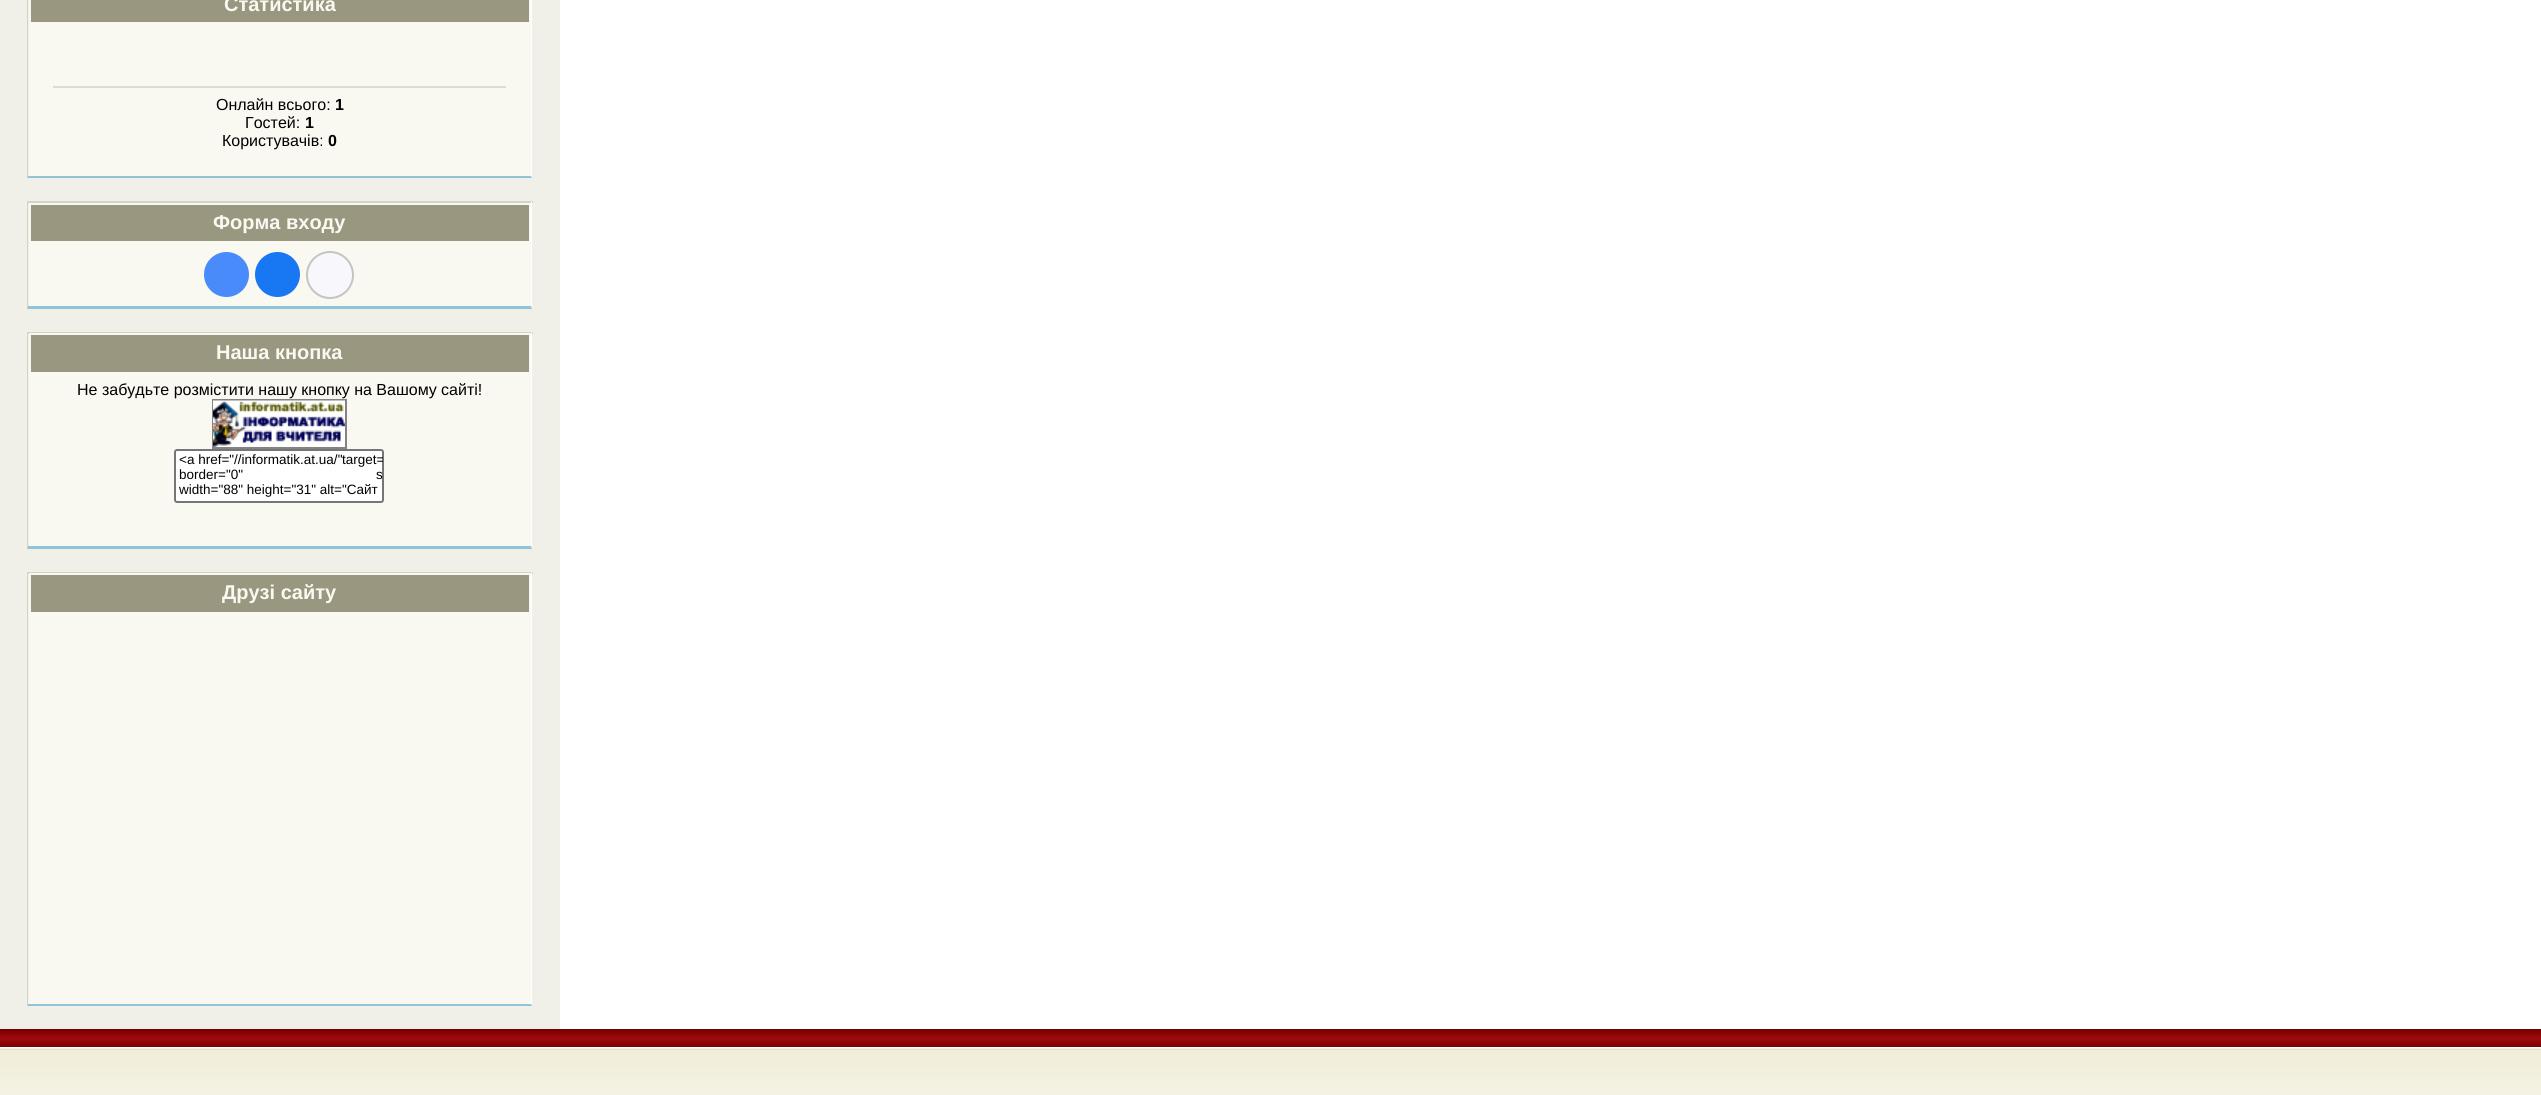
#include <cairo.h>
#include <math.h>
#include <stddef.h>

typedef struct { const char *family; double size; int italic, bold; unsigned color; } style_t;
static cairo_t *ctx;

static void ink(unsigned color) {
    cairo_set_source_rgb(ctx, (color >> 16) / 255.0, (color >> 8 & 255) / 255.0, (color & 255) / 255.0);
}

static void write(double x, double y, const char *s, const style_t *st) {
    cairo_select_font_face(ctx, st->family, st->italic ? CAIRO_FONT_SLANT_ITALIC : CAIRO_FONT_SLANT_NORMAL,
        st->bold ? CAIRO_FONT_WEIGHT_BOLD : CAIRO_FONT_WEIGHT_NORMAL);
    cairo_set_font_size(ctx, st->size);
    ink(st->color);
    cairo_move_to(ctx, x, y);
    cairo_show_text(ctx, s);
}

static void block(double x, double y, double w, double h, unsigned color) {
    ink(color);
    cairo_rectangle(ctx, x, y, w, h);
    cairo_fill(ctx);
}

static void round_path(double x, double y, double w, double h, double r) {
    cairo_new_sub_path(ctx);
    cairo_arc(ctx, x + w - r, y + h - r, r, 0, M_PI / 2);
    cairo_arc(ctx, x + r, y + h - r, r, M_PI / 2, M_PI);
    cairo_arc(ctx, x + r, y + r, r, M_PI, 1.5 * M_PI);
    cairo_arc(ctx, x + w - r, y + r, r, 1.5 * M_PI, 2 * M_PI);
    cairo_close_path(ctx);
}

static void paste(const char *path, double x, double y, double w, double h) {
    cairo_surface_t *image = cairo_image_surface_create_from_png(path);
    cairo_save(ctx);
    cairo_set_source_surface(ctx, image, x, y);
    cairo_rectangle(ctx, x, y, w, h);
    cairo_fill(ctx);
    cairo_restore(ctx);
    cairo_surface_destroy(image);
}

static const style_t s1 = {"Liberation Sans", 20, 0, 1, 0xfaf9f1};
static const style_t s2 = {"Liberation Sans", 16, 0, 0, 0x000000};
static const style_t s3 = {"Liberation Sans", 16, 0, 1, 0x000000};
static const style_t s4 = {"Liberation Sans", 13.5, 0, 0, 0x000000};

int main(void) {
    cairo_surface_t *surface = cairo_image_surface_create(CAIRO_FORMAT_RGB24, 2541, 1095);
    ctx = cairo_create(surface);
    cairo_font_options_t *options = cairo_font_options_create();
    cairo_font_options_set_hint_metrics(options, CAIRO_HINT_METRICS_OFF);
    cairo_font_options_set_hint_style(options, CAIRO_HINT_STYLE_NONE);
    cairo_set_font_options(ctx, options);
    cairo_set_miter_limit(ctx, 4);
    ink(0xffffff);
    cairo_paint(ctx);
    block(0, 0, 560, 1029, 0xf1f0e8);
    block(29, 24, 502, 152, 0xfaf9f1);
    ink(0xffffff);
    cairo_new_path(ctx);
    cairo_move_to(ctx, 532, -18);
    cairo_line_to(ctx, 532, 178);
    cairo_line_to(ctx, 531, 176);
    cairo_line_to(ctx, 531, -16);
    cairo_close_path(ctx);
    cairo_fill(ctx);
    ink(0x93c3d7);
    cairo_new_path(ctx);
    cairo_move_to(ctx, 532, 178);
    cairo_line_to(ctx, 27, 178);
    cairo_line_to(ctx, 28, 176);
    cairo_line_to(ctx, 531, 176);
    cairo_close_path(ctx);
    cairo_fill(ctx);
    ink(0xd3d2cb);
    cairo_new_path(ctx);
    cairo_move_to(ctx, 27, 178);
    cairo_line_to(ctx, 27, -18);
    cairo_line_to(ctx, 28, -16);
    cairo_line_to(ctx, 28, 176);
    cairo_close_path(ctx);
    cairo_fill(ctx);
    ink(0x99977f);
    cairo_rectangle(ctx, 30, -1, 500, 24);
    cairo_fill_preserve(ctx);
    ink(0xfaf9f1);
    cairo_stroke(ctx);
    write(224, 11, "Статистика", &s1);
    block(53, 86, 453, 2, 0xdcdbd4);
    write(216, 110, "Онлайн всього:", &s2);
    write(335, 110, "1", &s3);
    write(245, 128, "Гостей:", &s2);
    write(305, 128, "1", &s3);
    write(222, 146, "Користувачів:", &s2);
    write(328, 146, "0", &s3);
    block(29, 243, 502, 63, 0xfaf9f1);
    block(27, 201, 506, 2, 0xd3d2cb);
    ink(0xffffff);
    cairo_new_path(ctx);
    cairo_move_to(ctx, 532, 201);
    cairo_line_to(ctx, 532, 309);
    cairo_line_to(ctx, 531, 306);
    cairo_line_to(ctx, 531, 202);
    cairo_close_path(ctx);
    cairo_fill(ctx);
    ink(0x93c3d7);
    cairo_new_path(ctx);
    cairo_move_to(ctx, 532, 309);
    cairo_line_to(ctx, 27, 309);
    cairo_line_to(ctx, 28, 306);
    cairo_line_to(ctx, 531, 306);
    cairo_close_path(ctx);
    cairo_fill(ctx);
    ink(0xd3d2cb);
    cairo_new_path(ctx);
    cairo_move_to(ctx, 27, 309);
    cairo_line_to(ctx, 27, 201);
    cairo_line_to(ctx, 28, 202);
    cairo_line_to(ctx, 28, 306);
    cairo_close_path(ctx);
    cairo_fill(ctx);
    ink(0x99977f);
    cairo_rectangle(ctx, 30, 204, 500, 38);
    cairo_fill_preserve(ctx);
    ink(0xfaf9f1);
    cairo_stroke(ctx);
    write(213, 229, "Форма входу", &s1);
    ink(0x498bfa);
    cairo_new_path(ctx);
    cairo_arc(ctx, 226.5, 274.5, 22.5, 0, 2 * M_PI);
    cairo_fill(ctx);
    ink(0x1877f2);
    cairo_arc(ctx, 277.5, 274.5, 22.5, 0, 2 * M_PI);
    cairo_fill(ctx);
    ink(0xf8f8fc);
    cairo_arc(ctx, 330, 275, 23, 0, 2 * M_PI);
    cairo_fill_preserve(ctx);
    ink(0xc4c4c4);
    cairo_stroke(ctx);
    block(29, 374, 502, 172, 0xfaf9f1);
    block(27, 332, 506, 2, 0xd3d2cb);
    ink(0xffffff);
    cairo_new_path(ctx);
    cairo_move_to(ctx, 532, 332);
    cairo_line_to(ctx, 532, 549);
    cairo_line_to(ctx, 531, 546);
    cairo_line_to(ctx, 531, 333);
    cairo_close_path(ctx);
    cairo_fill(ctx);
    ink(0x93c3d7);
    cairo_new_path(ctx);
    cairo_move_to(ctx, 532, 549);
    cairo_line_to(ctx, 27, 549);
    cairo_line_to(ctx, 28, 546);
    cairo_line_to(ctx, 531, 546);
    cairo_close_path(ctx);
    cairo_fill(ctx);
    ink(0xd3d2cb);
    cairo_new_path(ctx);
    cairo_move_to(ctx, 27, 549);
    cairo_line_to(ctx, 27, 332);
    cairo_line_to(ctx, 28, 333);
    cairo_line_to(ctx, 28, 546);
    cairo_close_path(ctx);
    cairo_fill(ctx);
    ink(0x99977f);
    cairo_rectangle(ctx, 30, 334, 500, 39);
    cairo_fill_preserve(ctx);
    ink(0xfaf9f1);
    cairo_stroke(ctx);
    write(216, 359, "Наша кнопка", &s1);
    write(77, 395, "Не забудьте розмістити нашу кнопку на Вашому сайті!", &s2);
    cairo_rectangle(ctx, 213, 400, 133, 48);
    ink(0x838383);
    cairo_stroke(ctx);
    paste("pic1.png", 213, 400, 132, 47);
    ink(0xffffff);
    round_path(175, 450, 208, 52, 2);
    cairo_fill_preserve(ctx);
    ink(0x767676);
    cairo_stroke(ctx);
    write(179, 464, "<a href=\"//informatik.at.ua/\"", &s4);
    cairo_save(ctx);
    cairo_rectangle(ctx, 176, 450, 207, 51);
    cairo_clip(ctx);
    write(342, 464, "target=", &s4);
    cairo_restore(ctx);
    write(179, 479, "border=\"0\"", &s4);
    write(376, 479, "s", &s4);
    write(179, 494, "width=\"88\" height=\"31\" alt=\"Сайт", &s4);
    block(29, 614, 502, 390, 0xfaf9f1);
    block(27, 572, 506, 2, 0xd3d2cb);
    ink(0xffffff);
    cairo_new_path(ctx);
    cairo_move_to(ctx, 532, 572);
    cairo_line_to(ctx, 532, 1006);
    cairo_line_to(ctx, 531, 1004);
    cairo_line_to(ctx, 531, 573);
    cairo_close_path(ctx);
    cairo_fill(ctx);
    ink(0x93c3d7);
    cairo_new_path(ctx);
    cairo_move_to(ctx, 532, 1006);
    cairo_line_to(ctx, 27, 1006);
    cairo_line_to(ctx, 28, 1004);
    cairo_line_to(ctx, 531, 1004);
    cairo_close_path(ctx);
    cairo_fill(ctx);
    ink(0xd3d2cb);
    cairo_new_path(ctx);
    cairo_move_to(ctx, 27, 1006);
    cairo_line_to(ctx, 27, 572);
    cairo_line_to(ctx, 28, 573);
    cairo_line_to(ctx, 28, 1004);
    cairo_close_path(ctx);
    cairo_fill(ctx);
    ink(0x99977f);
    cairo_rectangle(ctx, 30, 574, 500, 39);
    cairo_fill_preserve(ctx);
    ink(0xfaf9f1);
    cairo_stroke(ctx);
    write(222, 599, "Друзі сайту", &s1);
    paste("pic2.png", 0, 1029, 2541, 18);
    paste("pic3.png", 0, 1047, 2541, 48);
    cairo_surface_write_to_png(surface, "screenshot.png");
    cairo_font_options_destroy(options);
    cairo_destroy(ctx);
    cairo_surface_destroy(surface);
    return 0;
}
